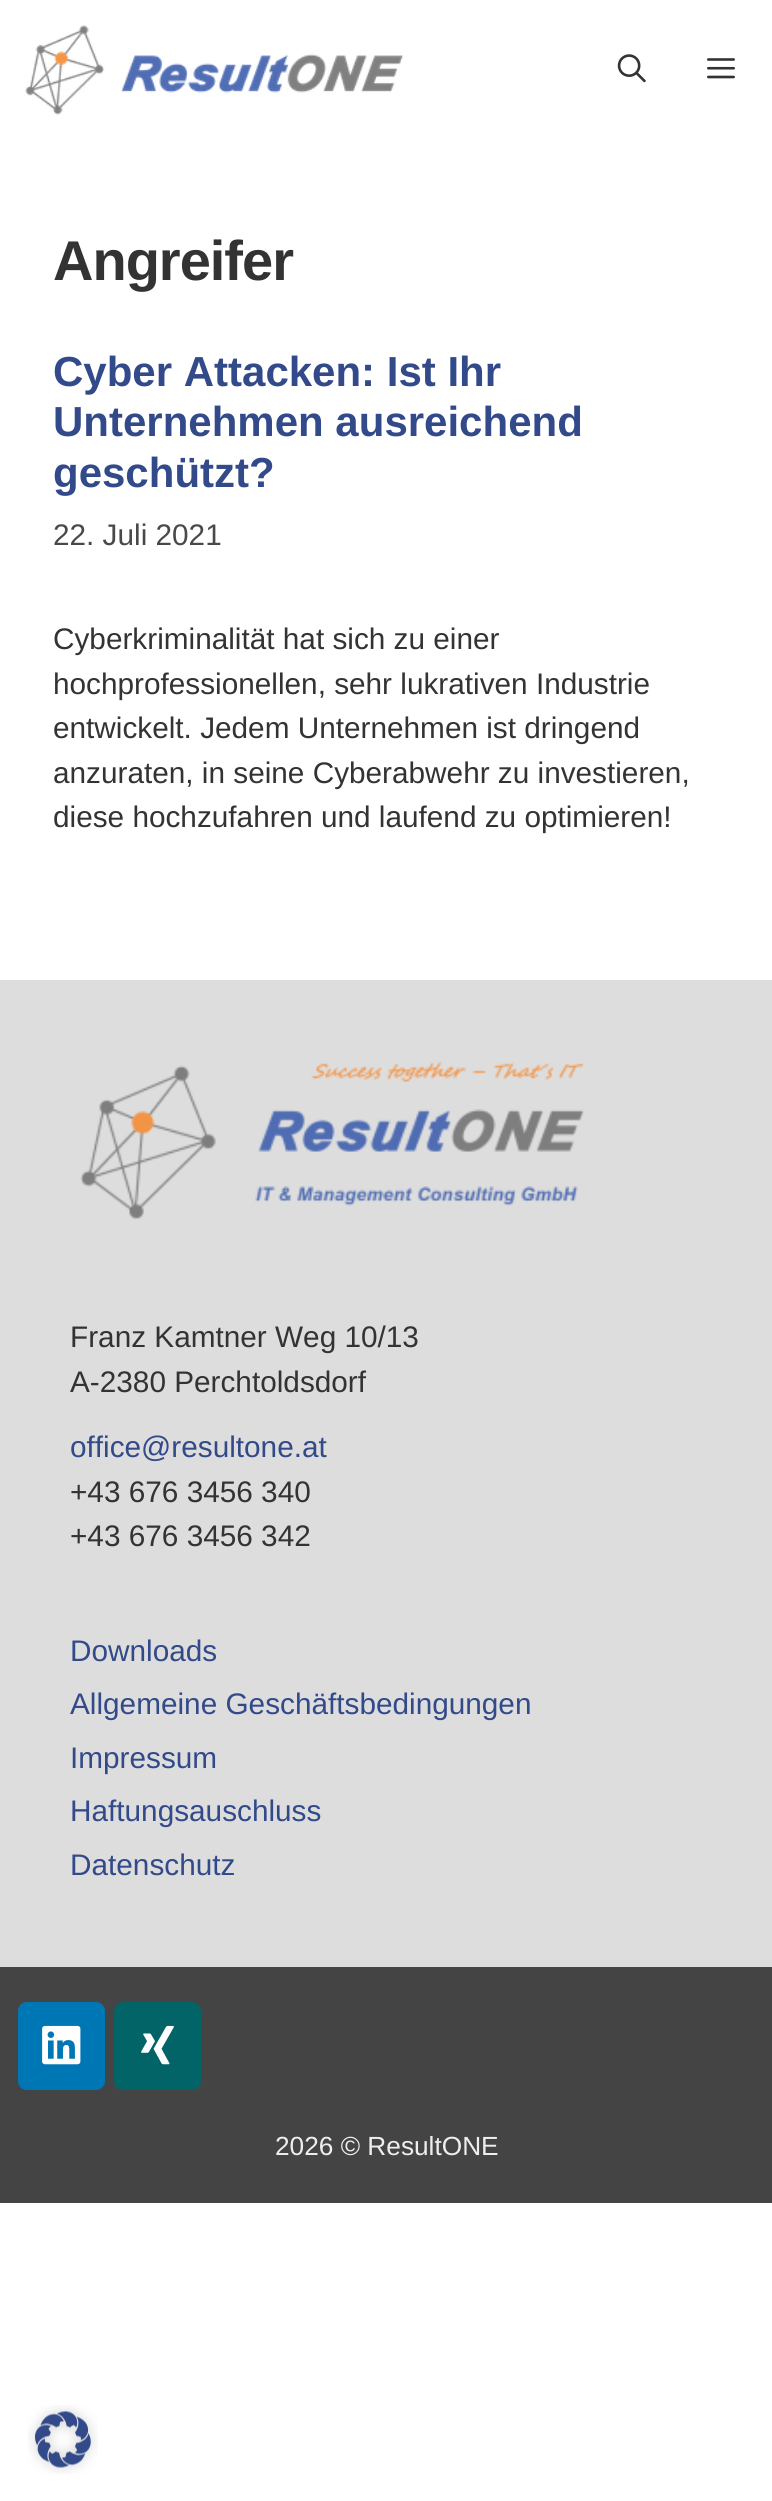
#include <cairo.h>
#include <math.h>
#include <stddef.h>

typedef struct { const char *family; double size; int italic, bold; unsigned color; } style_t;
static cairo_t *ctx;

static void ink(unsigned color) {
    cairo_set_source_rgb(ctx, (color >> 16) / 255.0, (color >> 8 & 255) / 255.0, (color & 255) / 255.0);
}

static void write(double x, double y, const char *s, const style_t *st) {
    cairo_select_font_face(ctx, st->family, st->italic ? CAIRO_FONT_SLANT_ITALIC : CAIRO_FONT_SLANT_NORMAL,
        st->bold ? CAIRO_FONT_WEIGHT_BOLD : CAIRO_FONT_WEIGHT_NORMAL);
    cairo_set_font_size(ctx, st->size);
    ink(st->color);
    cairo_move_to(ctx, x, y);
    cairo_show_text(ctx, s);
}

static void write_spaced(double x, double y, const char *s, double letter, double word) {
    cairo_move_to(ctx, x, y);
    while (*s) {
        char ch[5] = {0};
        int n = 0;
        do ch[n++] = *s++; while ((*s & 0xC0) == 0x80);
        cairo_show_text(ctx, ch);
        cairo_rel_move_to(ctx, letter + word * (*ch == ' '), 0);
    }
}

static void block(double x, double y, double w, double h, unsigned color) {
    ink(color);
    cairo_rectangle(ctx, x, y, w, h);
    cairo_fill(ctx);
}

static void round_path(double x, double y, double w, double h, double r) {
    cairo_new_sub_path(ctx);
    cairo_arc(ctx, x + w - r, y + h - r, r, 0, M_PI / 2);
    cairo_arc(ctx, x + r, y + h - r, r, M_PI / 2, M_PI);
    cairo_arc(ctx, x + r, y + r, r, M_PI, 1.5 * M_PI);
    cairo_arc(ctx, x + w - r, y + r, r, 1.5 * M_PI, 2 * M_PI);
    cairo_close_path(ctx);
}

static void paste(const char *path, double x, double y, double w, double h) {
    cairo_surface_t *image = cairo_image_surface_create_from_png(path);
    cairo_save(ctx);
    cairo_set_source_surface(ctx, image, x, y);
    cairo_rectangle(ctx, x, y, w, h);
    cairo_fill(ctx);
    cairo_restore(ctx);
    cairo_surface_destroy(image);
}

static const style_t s1 = {"Liberation Sans", 42, 0, 1, 0x334a8a};
static const style_t s2 = {"Liberation Sans", 29.75, 0, 0, 0x494949};
static const style_t s3 = {"Liberation Sans", 29.75, 0, 0, 0x333333};
static const style_t s4 = {"Liberation Sans", 29.75, 0, 0, 0x334a8a};
static const style_t s5 = {"Liberation Sans", 26.25, 0, 0, 0xeeeeee};

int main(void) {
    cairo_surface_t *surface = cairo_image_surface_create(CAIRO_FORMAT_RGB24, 772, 2501);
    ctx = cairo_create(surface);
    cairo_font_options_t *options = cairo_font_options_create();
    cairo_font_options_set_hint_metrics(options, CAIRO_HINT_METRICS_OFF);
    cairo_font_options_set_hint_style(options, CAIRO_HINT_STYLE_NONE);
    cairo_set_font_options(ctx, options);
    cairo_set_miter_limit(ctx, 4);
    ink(0xffffff);
    cairo_paint(ctx);
    paste("pic1.png", 25, 25, 379, 90);
    paste("pic2.png", 617, 54, 29, 29);
    paste("pic3.png", 707, 58, 28, 21);
    cairo_select_font_face(ctx, "Liberation Sans", CAIRO_FONT_SLANT_NORMAL, CAIRO_FONT_WEIGHT_BOLD);
    cairo_set_font_size(ctx, 56);
    ink(0x333333);
    write_spaced(53, 280, "Angreifer", -1, 0);
    write(53, 386, "Cyber Attacken: Ist Ihr", &s1);
    write(53, 436, "Unternehmen ausreichend", &s1);
    write(53, 487, "geschützt?", &s1);
    write(53, 545, "22. Juli 2021", &s2);
    write(53, 649, "Cyberkriminalität hat sich zu einer", &s3);
    write(53, 694, "hochprofessionellen, sehr lukrativen Industrie", &s3);
    write(53, 738, "entwickelt. Jedem Unternehmen ist dringend", &s3);
    write(53, 783, "anzuraten, in seine Cyberabwehr zu investieren,", &s3);
    write(53, 827, "diese hochzufahren und laufend zu optimieren!", &s3);
    block(0, 980, 772, 987, 0xdddddd);
    paste("pic4.png", 80, 1061, 504, 159);
    write(70, 1347, "Franz Kamtner Weg 10/13", &s3);
    write(70, 1392, "A-2380 Perchtoldsdorf", &s3);
    write(70, 1457, "office@resultone.at", &s4);
    write(70, 1502, "+43 676 3456 340", &s3);
    write(70, 1546, "+43 676 3456 342", &s3);
    write(70, 1661, "Downloads", &s4);
    write(70, 1714, "Allgemeine Geschäftsbedingungen", &s4);
    write(70, 1768, "Impressum", &s4);
    write(70, 1821, "Haftungsauschluss", &s4);
    write(70, 1875, "Datenschutz", &s4);
    block(0, 1967, 772, 236, 0x444444);
    ink(0x0077b5);
    round_path(18, 2002, 87, 88, 9);
    cairo_fill(ctx);
    paste("pic5.png", 42, 2025, 39, 40);
    ink(0x026466);
    round_path(114, 2002, 87, 88, 9);
    cairo_fill(ctx);
    paste("pic6.png", 141, 2025, 33, 40);
    write(275, 2155, "2026 © ResultONE", &s5);
    paste("pic7.png", 28, 2405, 70, 69);
    cairo_surface_write_to_png(surface, "screenshot.png");
    cairo_font_options_destroy(options);
    cairo_destroy(ctx);
    cairo_surface_destroy(surface);
    return 0;
}
